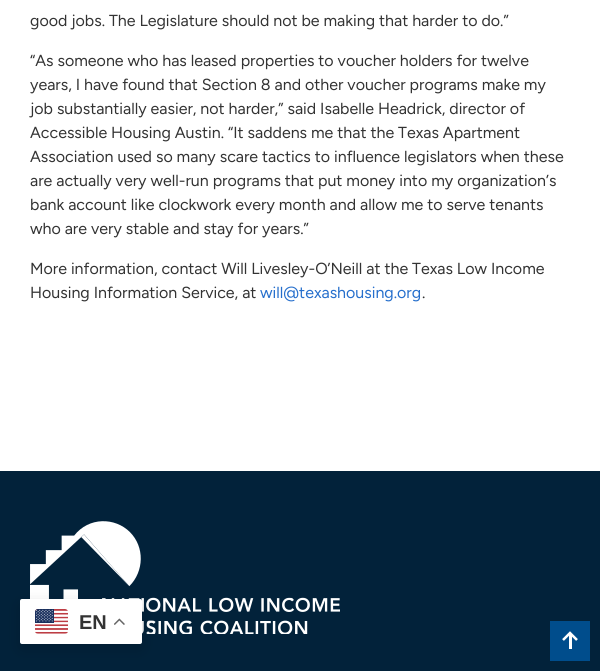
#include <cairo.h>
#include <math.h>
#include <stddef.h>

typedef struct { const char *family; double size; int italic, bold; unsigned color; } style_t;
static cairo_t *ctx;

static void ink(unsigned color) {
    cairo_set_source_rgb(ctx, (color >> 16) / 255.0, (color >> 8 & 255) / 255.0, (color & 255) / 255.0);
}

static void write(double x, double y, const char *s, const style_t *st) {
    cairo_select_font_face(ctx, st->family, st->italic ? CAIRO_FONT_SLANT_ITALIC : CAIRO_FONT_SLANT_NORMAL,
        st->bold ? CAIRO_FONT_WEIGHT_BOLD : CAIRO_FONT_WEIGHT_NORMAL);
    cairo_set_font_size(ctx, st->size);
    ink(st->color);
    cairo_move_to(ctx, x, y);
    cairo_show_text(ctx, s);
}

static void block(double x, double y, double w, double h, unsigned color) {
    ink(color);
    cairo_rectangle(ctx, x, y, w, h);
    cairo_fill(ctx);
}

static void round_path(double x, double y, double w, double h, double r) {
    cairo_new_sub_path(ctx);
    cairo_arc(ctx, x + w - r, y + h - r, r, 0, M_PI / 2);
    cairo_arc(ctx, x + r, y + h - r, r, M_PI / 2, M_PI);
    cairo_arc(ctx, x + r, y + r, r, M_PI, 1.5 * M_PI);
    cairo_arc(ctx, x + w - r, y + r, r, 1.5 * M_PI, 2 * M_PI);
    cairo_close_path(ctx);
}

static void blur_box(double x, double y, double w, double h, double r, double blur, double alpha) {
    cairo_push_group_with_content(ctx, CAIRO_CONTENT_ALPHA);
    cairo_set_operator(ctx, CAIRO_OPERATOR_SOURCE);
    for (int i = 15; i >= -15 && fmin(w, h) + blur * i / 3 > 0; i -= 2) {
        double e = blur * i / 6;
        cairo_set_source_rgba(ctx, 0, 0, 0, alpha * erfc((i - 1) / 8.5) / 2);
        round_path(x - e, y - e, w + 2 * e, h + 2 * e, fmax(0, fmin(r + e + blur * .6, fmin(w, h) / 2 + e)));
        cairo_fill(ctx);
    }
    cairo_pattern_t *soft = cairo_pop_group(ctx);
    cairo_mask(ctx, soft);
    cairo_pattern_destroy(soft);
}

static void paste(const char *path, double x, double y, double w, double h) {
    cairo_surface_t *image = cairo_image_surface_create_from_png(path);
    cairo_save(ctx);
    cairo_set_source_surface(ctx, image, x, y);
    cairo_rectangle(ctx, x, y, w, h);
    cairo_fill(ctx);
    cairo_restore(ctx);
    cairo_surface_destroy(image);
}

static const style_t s1 = {"Figtree", 16, 0, 0, 0x333333};
static const style_t s2 = {"Figtree", 16, 0, 0, 0x266fcc};
static const style_t s3 = {"Liberation Sans", 20, 0, 1, 0x333333};

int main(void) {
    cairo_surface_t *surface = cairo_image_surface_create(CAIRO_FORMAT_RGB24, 600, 671);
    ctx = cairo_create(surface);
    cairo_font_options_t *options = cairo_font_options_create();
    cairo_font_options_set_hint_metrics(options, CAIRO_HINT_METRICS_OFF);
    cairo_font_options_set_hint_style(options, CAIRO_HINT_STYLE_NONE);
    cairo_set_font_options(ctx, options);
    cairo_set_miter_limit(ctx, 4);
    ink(0xffffff);
    cairo_paint(ctx);
    write(30, 26, "good jobs. The Legislature should not be making that harder to do.”", &s1);
    write(30, 66, "“As someone who has leased properties to voucher holders for twelve", &s1);
    write(30, 90, "years, I have found that Section 8 and other voucher programs make my", &s1);
    write(30, 114, "job substantially easier, not harder,” said Isabelle Headrick, director of", &s1);
    write(30, 138, "Accessible Housing Austin. “It saddens me that the Texas Apartment", &s1);
    write(30, 162, "Association used so many scare tactics to influence legislators when these", &s1);
    write(30, 186, "are actually very well-run programs that put money into my organization’s", &s1);
    write(30, 210, "bank account like clockwork every month and allow me to serve tenants", &s1);
    write(30, 234, "who are very stable and stay for years.”", &s1);
    write(30, 274, "More information, contact Will Livesley-O’Neill at the Texas Low Income", &s1);
    write(30, 298, "Housing Information Service, at", &s1);
    write(260, 298, "will@texashousing.org", &s2);
    write(422, 298, ".", &s1);
    block(0, 471, 600, 200, 0x02223a);
    paste("pic1.png", 30, 521, 310, 113);
    ink(0x000000);
    blur_box(20, 604, 122, 45, 2, 7.5, 0.15);
    ink(0xffffff);
    round_path(20, 599, 122, 45, 2);
    cairo_fill(ctx);
    paste("pic2.png", 35, 609, 33, 25);
    write(79, 629, "EN", &s3);
    paste("pic3.png", 114, 618, 11, 7);
    block(550, 621, 40, 40, 0x004d8c);
    block(569, 634, 3, 15, 0xffffff);
    cairo_new_path(ctx);
    cairo_move_to(ctx, 563, 640);
    cairo_line_to(ctx, 570, 633);
    cairo_line_to(ctx, 577, 640);
    cairo_set_line_width(ctx, 2.5);
    cairo_stroke(ctx);
    cairo_surface_write_to_png(surface, "screenshot.png");
    cairo_font_options_destroy(options);
    cairo_destroy(ctx);
    cairo_surface_destroy(surface);
    return 0;
}
